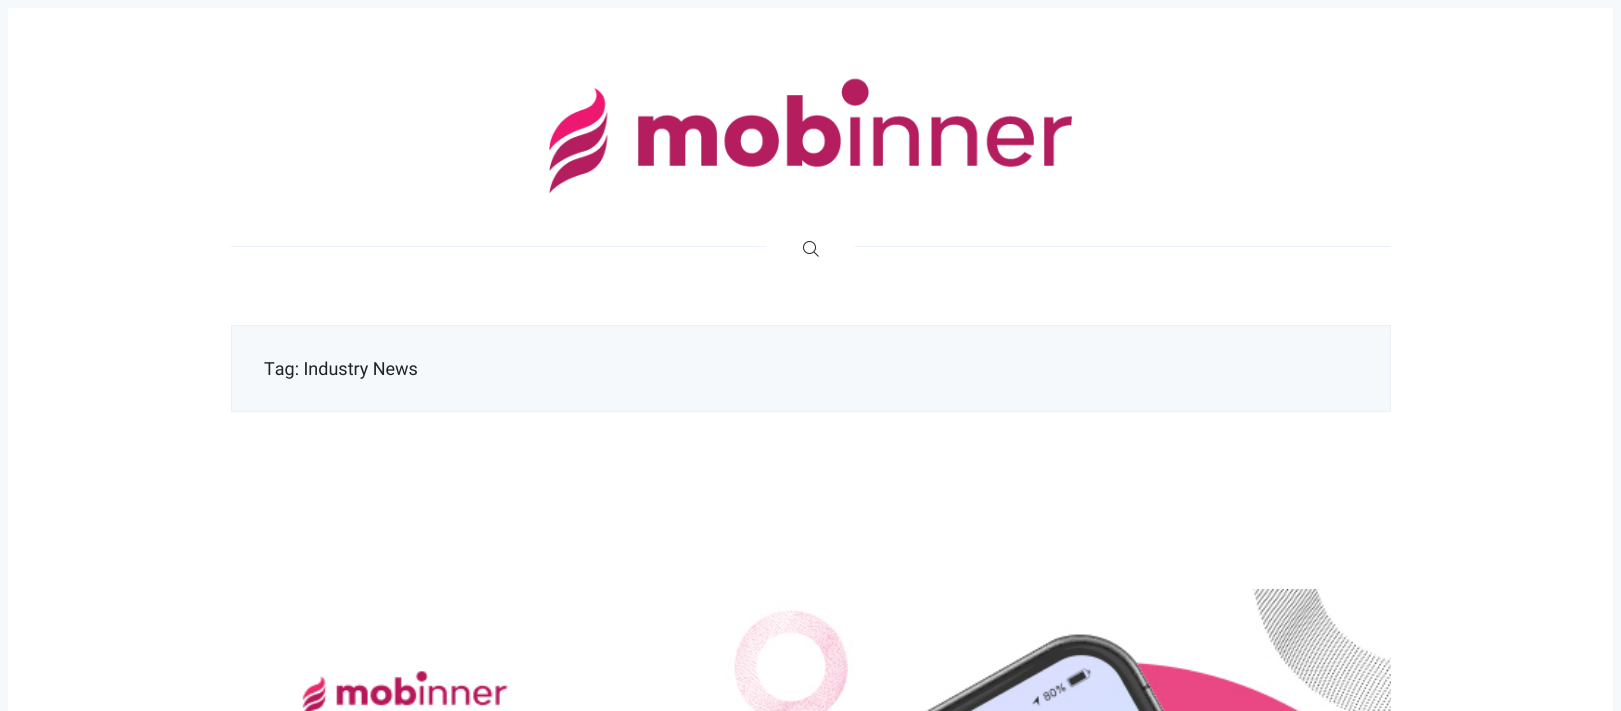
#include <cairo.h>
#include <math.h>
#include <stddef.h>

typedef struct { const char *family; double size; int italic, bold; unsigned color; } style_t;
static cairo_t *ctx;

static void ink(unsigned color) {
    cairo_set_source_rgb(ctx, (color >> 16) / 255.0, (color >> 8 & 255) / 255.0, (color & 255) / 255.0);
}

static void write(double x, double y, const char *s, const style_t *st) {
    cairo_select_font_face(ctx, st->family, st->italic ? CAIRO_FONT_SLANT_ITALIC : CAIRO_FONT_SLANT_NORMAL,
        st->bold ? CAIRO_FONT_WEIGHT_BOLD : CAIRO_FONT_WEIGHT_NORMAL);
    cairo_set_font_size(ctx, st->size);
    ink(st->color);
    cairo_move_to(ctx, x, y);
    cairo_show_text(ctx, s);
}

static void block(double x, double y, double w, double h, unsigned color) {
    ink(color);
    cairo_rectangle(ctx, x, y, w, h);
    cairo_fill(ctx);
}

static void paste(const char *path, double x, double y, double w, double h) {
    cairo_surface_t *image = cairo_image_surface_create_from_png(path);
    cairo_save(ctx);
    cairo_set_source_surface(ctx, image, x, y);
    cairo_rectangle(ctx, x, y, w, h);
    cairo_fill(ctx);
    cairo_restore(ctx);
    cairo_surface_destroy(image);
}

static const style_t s1 = {"Roboto", 18, 0, 0, 0x222222};

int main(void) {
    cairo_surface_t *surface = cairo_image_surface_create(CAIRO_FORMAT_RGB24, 1621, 711);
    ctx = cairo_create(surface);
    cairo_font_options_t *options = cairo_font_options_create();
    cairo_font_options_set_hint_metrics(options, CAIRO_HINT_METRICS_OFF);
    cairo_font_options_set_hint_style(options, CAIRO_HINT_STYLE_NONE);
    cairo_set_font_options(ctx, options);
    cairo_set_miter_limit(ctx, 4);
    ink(0xffffff);
    cairo_paint(ctx);
    cairo_rectangle(ctx, 4, 4, 1613, 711);
    ink(0xf6f9fc);
    cairo_set_line_width(ctx, 8);
    cairo_stroke(ctx);
    paste("pic1.png", 549, 78, 524, 116);
    block(231, 246, 1160, 1, 0xebf1f8);
    block(766, 246, 89, 1, 0xffffff);
    paste("pic2.png", 803, 241, 16, 16);
    ink(0xf6f9fc);
    cairo_rectangle(ctx, 231.5, 325.5, 1159, 86);
    cairo_fill_preserve(ctx);
    ink(0xebf1f8);
    cairo_set_line_width(ctx, 1);
    cairo_stroke(ctx);
    write(264, 375, "Tag: Industry News", &s1);
    paste("pic3.png", 302, 589, 1089, 122);
    cairo_surface_write_to_png(surface, "screenshot.png");
    cairo_font_options_destroy(options);
    cairo_destroy(ctx);
    cairo_surface_destroy(surface);
    return 0;
}
